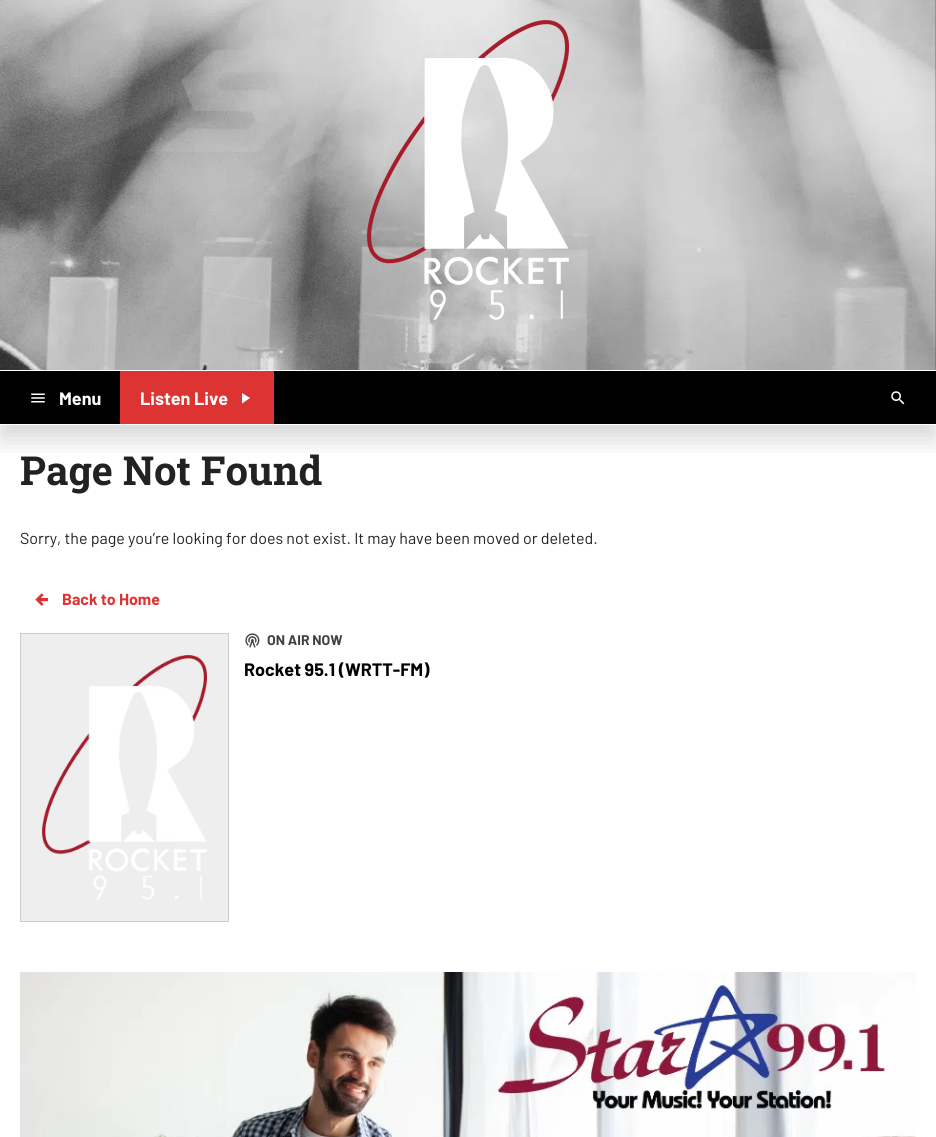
#include <cairo.h>
#include <math.h>
#include <stddef.h>

typedef struct { const char *family; double size; int italic, bold; unsigned color; } style_t;
static cairo_t *ctx;

static void ink(unsigned color) {
    cairo_set_source_rgb(ctx, (color >> 16) / 255.0, (color >> 8 & 255) / 255.0, (color & 255) / 255.0);
}

static void write(double x, double y, const char *s, const style_t *st) {
    cairo_select_font_face(ctx, st->family, st->italic ? CAIRO_FONT_SLANT_ITALIC : CAIRO_FONT_SLANT_NORMAL,
        st->bold ? CAIRO_FONT_WEIGHT_BOLD : CAIRO_FONT_WEIGHT_NORMAL);
    cairo_set_font_size(ctx, st->size);
    ink(st->color);
    cairo_move_to(ctx, x, y);
    cairo_show_text(ctx, s);
}

static void block(double x, double y, double w, double h, unsigned color) {
    ink(color);
    cairo_rectangle(ctx, x, y, w, h);
    cairo_fill(ctx);
}

static void round_path(double x, double y, double w, double h, double r) {
    cairo_new_sub_path(ctx);
    cairo_arc(ctx, x + w - r, y + h - r, r, 0, M_PI / 2);
    cairo_arc(ctx, x + r, y + h - r, r, M_PI / 2, M_PI);
    cairo_arc(ctx, x + r, y + r, r, M_PI, 1.5 * M_PI);
    cairo_arc(ctx, x + w - r, y + r, r, 1.5 * M_PI, 2 * M_PI);
    cairo_close_path(ctx);
}

static void blur_box(double x, double y, double w, double h, double r, double blur, double alpha) {
    cairo_push_group_with_content(ctx, CAIRO_CONTENT_ALPHA);
    cairo_set_operator(ctx, CAIRO_OPERATOR_SOURCE);
    for (int i = 15; i >= -15 && fmin(w, h) + blur * i / 3 > 0; i -= 2) {
        double e = blur * i / 6;
        cairo_set_source_rgba(ctx, 0, 0, 0, alpha * erfc((i - 1) / 8.5) / 2);
        round_path(x - e, y - e, w + 2 * e, h + 2 * e, fmax(0, fmin(r + e + blur * .6, fmin(w, h) / 2 + e)));
        cairo_fill(ctx);
    }
    cairo_pattern_t *soft = cairo_pop_group(ctx);
    cairo_mask(ctx, soft);
    cairo_pattern_destroy(soft);
}

static void paste(const char *path, double x, double y, double w, double h) {
    cairo_surface_t *image = cairo_image_surface_create_from_png(path);
    cairo_save(ctx);
    cairo_set_source_surface(ctx, image, x, y);
    cairo_rectangle(ctx, x, y, w, h);
    cairo_fill(ctx);
    cairo_restore(ctx);
    cairo_surface_destroy(image);
}

static const style_t s1 = {"Barlow", 18, 0, 1, 0xffffff};
static const style_t s2 = {"Roboto Slab", 40, 0, 1, 0x222222};
static const style_t s3 = {"Barlow", 16, 0, 0, 0x222222};
static const style_t s4 = {"Barlow", 16, 0, 1, 0xdd3333};
static const style_t s5 = {"Barlow", 14, 0, 1, 0x404040};
static const style_t s6 = {"Barlow", 18, 0, 1, 0x000000};

int main(void) {
    cairo_surface_t *surface = cairo_image_surface_create(CAIRO_FORMAT_RGB24, 936, 1137);
    ctx = cairo_create(surface);
    cairo_font_options_t *options = cairo_font_options_create();
    cairo_font_options_set_hint_metrics(options, CAIRO_HINT_METRICS_OFF);
    cairo_font_options_set_hint_style(options, CAIRO_HINT_STYLE_NONE);
    cairo_set_font_options(ctx, options);
    cairo_set_miter_limit(ctx, 4);
    ink(0x000000);
    cairo_paint(ctx);
    paste("pic1.png", 0, 0, 936, 370);
    block(0, 370, 936, 1, 0xffffff);
    paste("pic2.png", 367, 20, 202, 300);
    block(0, 425, 936, 712, 0xffffff);
    cairo_save(ctx);
    cairo_rectangle(ctx, 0, 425, 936, 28);
    cairo_clip(ctx);
    ink(0x000000);
    blur_box(0, 385, 936, 54, 0, 12.5, 0.16);
    cairo_restore(ctx);
    block(0, 424, 936, 1, 0xffffff);
    paste("pic3.png", 31, 393, 14, 10);
    write(59, 405, "Menu", &s1);
    block(120, 371, 154, 53, 0xdd3333);
    write(140, 405, "Listen Live", &s1);
    cairo_new_path(ctx);
    cairo_move_to(ctx, 242, 393);
    cairo_line_to(ctx, 242, 403.5);
    cairo_line_to(ctx, 250, 398);
    cairo_close_path(ctx);
    cairo_fill(ctx);
    paste("pic4.png", 891, 391, 14, 14);
    write(20, 485, "Page Not Found", &s2);
    write(20, 544, "Sorry, the page you’re looking for does not exist. It may have been moved or deleted.", &s3);
    paste("pic5.png", 35, 593, 13, 13);
    write(62, 605, "Back to Home", &s4);
    ink(0xeeeeee);
    cairo_rectangle(ctx, 20.5, 633.5, 208, 288);
    cairo_fill_preserve(ctx);
    ink(0xcccccc);
    cairo_set_line_width(ctx, 1);
    cairo_stroke(ctx);
    paste("pic6.png", 42, 655, 165, 245);
    paste("pic7.png", 245, 633, 15, 15);
    write(267, 645, "ON AIR NOW", &s5);
    write(244, 676, "Rocket 95.1 (WRTT-FM)", &s6);
    paste("pic8.png", 20, 972, 896, 165);
    cairo_surface_write_to_png(surface, "screenshot.png");
    cairo_font_options_destroy(options);
    cairo_destroy(ctx);
    cairo_surface_destroy(surface);
    return 0;
}
